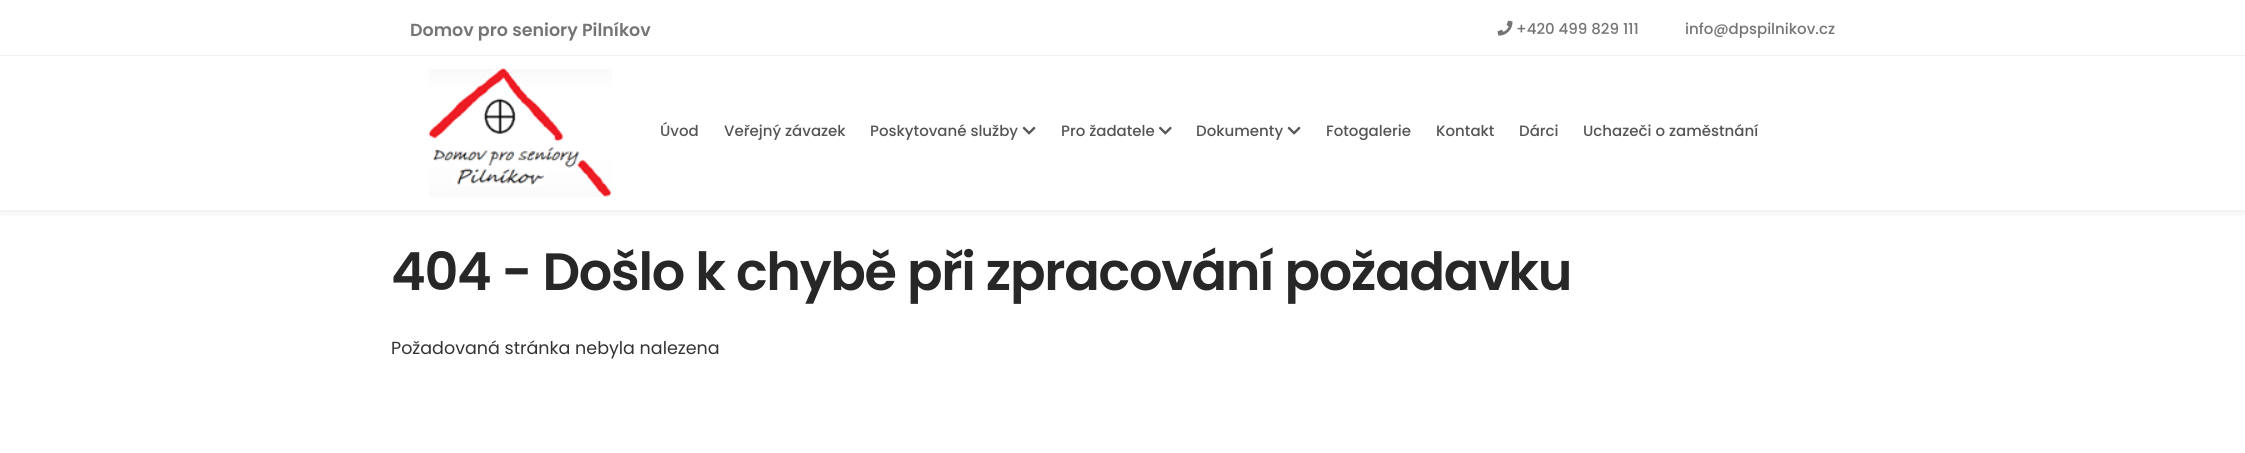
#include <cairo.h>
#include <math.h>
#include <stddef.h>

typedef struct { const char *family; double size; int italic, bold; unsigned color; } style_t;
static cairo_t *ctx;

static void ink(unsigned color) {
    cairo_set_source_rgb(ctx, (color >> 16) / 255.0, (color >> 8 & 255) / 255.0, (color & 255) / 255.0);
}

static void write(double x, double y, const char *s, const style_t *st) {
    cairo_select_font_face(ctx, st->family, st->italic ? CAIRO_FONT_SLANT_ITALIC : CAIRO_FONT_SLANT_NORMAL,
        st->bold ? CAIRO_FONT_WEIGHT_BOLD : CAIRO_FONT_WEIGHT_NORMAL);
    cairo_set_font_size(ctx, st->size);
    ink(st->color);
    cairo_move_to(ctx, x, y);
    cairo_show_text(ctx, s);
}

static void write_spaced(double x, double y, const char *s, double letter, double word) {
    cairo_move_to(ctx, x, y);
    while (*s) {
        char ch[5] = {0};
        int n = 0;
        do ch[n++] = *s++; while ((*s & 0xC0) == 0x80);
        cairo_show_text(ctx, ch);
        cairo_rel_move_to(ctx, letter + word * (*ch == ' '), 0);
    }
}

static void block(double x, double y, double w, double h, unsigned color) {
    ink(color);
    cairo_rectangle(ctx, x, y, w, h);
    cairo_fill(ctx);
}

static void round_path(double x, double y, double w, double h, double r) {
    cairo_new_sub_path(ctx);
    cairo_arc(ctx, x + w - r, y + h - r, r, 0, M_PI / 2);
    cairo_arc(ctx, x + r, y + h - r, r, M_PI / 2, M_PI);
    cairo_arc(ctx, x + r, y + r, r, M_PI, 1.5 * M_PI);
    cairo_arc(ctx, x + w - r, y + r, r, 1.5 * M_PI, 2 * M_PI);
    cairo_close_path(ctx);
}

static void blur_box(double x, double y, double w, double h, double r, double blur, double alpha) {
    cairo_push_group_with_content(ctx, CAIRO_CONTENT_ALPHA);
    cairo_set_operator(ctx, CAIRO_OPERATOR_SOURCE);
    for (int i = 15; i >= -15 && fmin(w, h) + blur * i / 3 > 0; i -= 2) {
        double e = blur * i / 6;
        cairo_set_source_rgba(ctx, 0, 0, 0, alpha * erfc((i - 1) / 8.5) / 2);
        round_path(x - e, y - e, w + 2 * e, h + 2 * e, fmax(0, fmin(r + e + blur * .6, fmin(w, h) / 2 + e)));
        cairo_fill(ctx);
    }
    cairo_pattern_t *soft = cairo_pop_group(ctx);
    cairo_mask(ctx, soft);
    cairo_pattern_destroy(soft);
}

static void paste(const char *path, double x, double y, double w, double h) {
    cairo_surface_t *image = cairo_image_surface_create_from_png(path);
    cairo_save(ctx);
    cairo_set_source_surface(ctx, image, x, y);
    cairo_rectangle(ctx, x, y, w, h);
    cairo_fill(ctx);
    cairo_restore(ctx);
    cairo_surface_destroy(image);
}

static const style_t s1 = {"Poppins SemiBold", 17.5, 0, 0, 0x757575};
static const style_t s2 = {"Poppins Medium", 15, 0, 0, 0x757575};
static const style_t s3 = {"Poppins Medium", 15, 0, 0, 0x555555};
static const style_t s4 = {"Poppins", 17.5, 0, 0, 0x333333};

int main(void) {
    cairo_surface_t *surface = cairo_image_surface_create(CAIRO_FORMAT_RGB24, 2245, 453);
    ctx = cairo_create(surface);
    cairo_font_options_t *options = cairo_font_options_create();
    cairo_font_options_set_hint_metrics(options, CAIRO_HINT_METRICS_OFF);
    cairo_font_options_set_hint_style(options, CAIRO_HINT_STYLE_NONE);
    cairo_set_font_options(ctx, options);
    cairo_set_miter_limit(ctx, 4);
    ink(0xffffff);
    cairo_paint(ctx);
    block(0, 55, 2245, 1, 0xf2f2f2);
    write(410, 36, "Domov pro seniory Pilníkov", &s1);
    paste("pic1.png", 1497, 20, 16, 16);
    write(1516, 34, "+420 499 829 111", &s2);
    write(1685, 34, "info@dpspilnikov.cz", &s2);
    cairo_save(ctx);
    cairo_rectangle(ctx, 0, 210, 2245, 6);
    cairo_clip(ctx);
    ink(0x000000);
    blur_box(0, 59, 2245, 154, 0, 5, 0.07);
    cairo_restore(ctx);
    paste("pic2.png", 428, 68, 184, 129);
    write(660, 136, "Úvod", &s3);
    write(724, 136, "Veřejný závazek", &s3);
    write(870, 136, "Poskytované služby", &s3);
    paste("pic3.png", 1022, 126, 14, 9);
    write(1061, 136, "Pro žadatele", &s3);
    paste("pic4.png", 1159, 126, 13, 9);
    write(1196, 136, "Dokumenty", &s3);
    paste("pic3.png", 1287, 126, 14, 9);
    write(1326, 136, "Fotogalerie", &s3);
    write(1436, 136, "Kontakt", &s3);
    write(1519, 136, "Dárci", &s3);
    write(1583, 136, "Uchazeči o zaměstnání", &s3);
    cairo_select_font_face(ctx, "Poppins SemiBold", CAIRO_FONT_SLANT_NORMAL, CAIRO_FONT_WEIGHT_NORMAL);
    cairo_set_font_size(ctx, 52.5);
    ink(0x272727);
    write_spaced(391, 290, "404 - Došlo k chybě při zpracování požadavku", -1.25, 0);
    write(391, 354, "Požadovaná stránka nebyla nalezena", &s4);
    cairo_surface_write_to_png(surface, "screenshot.png");
    cairo_font_options_destroy(options);
    cairo_destroy(ctx);
    cairo_surface_destroy(surface);
    return 0;
}
